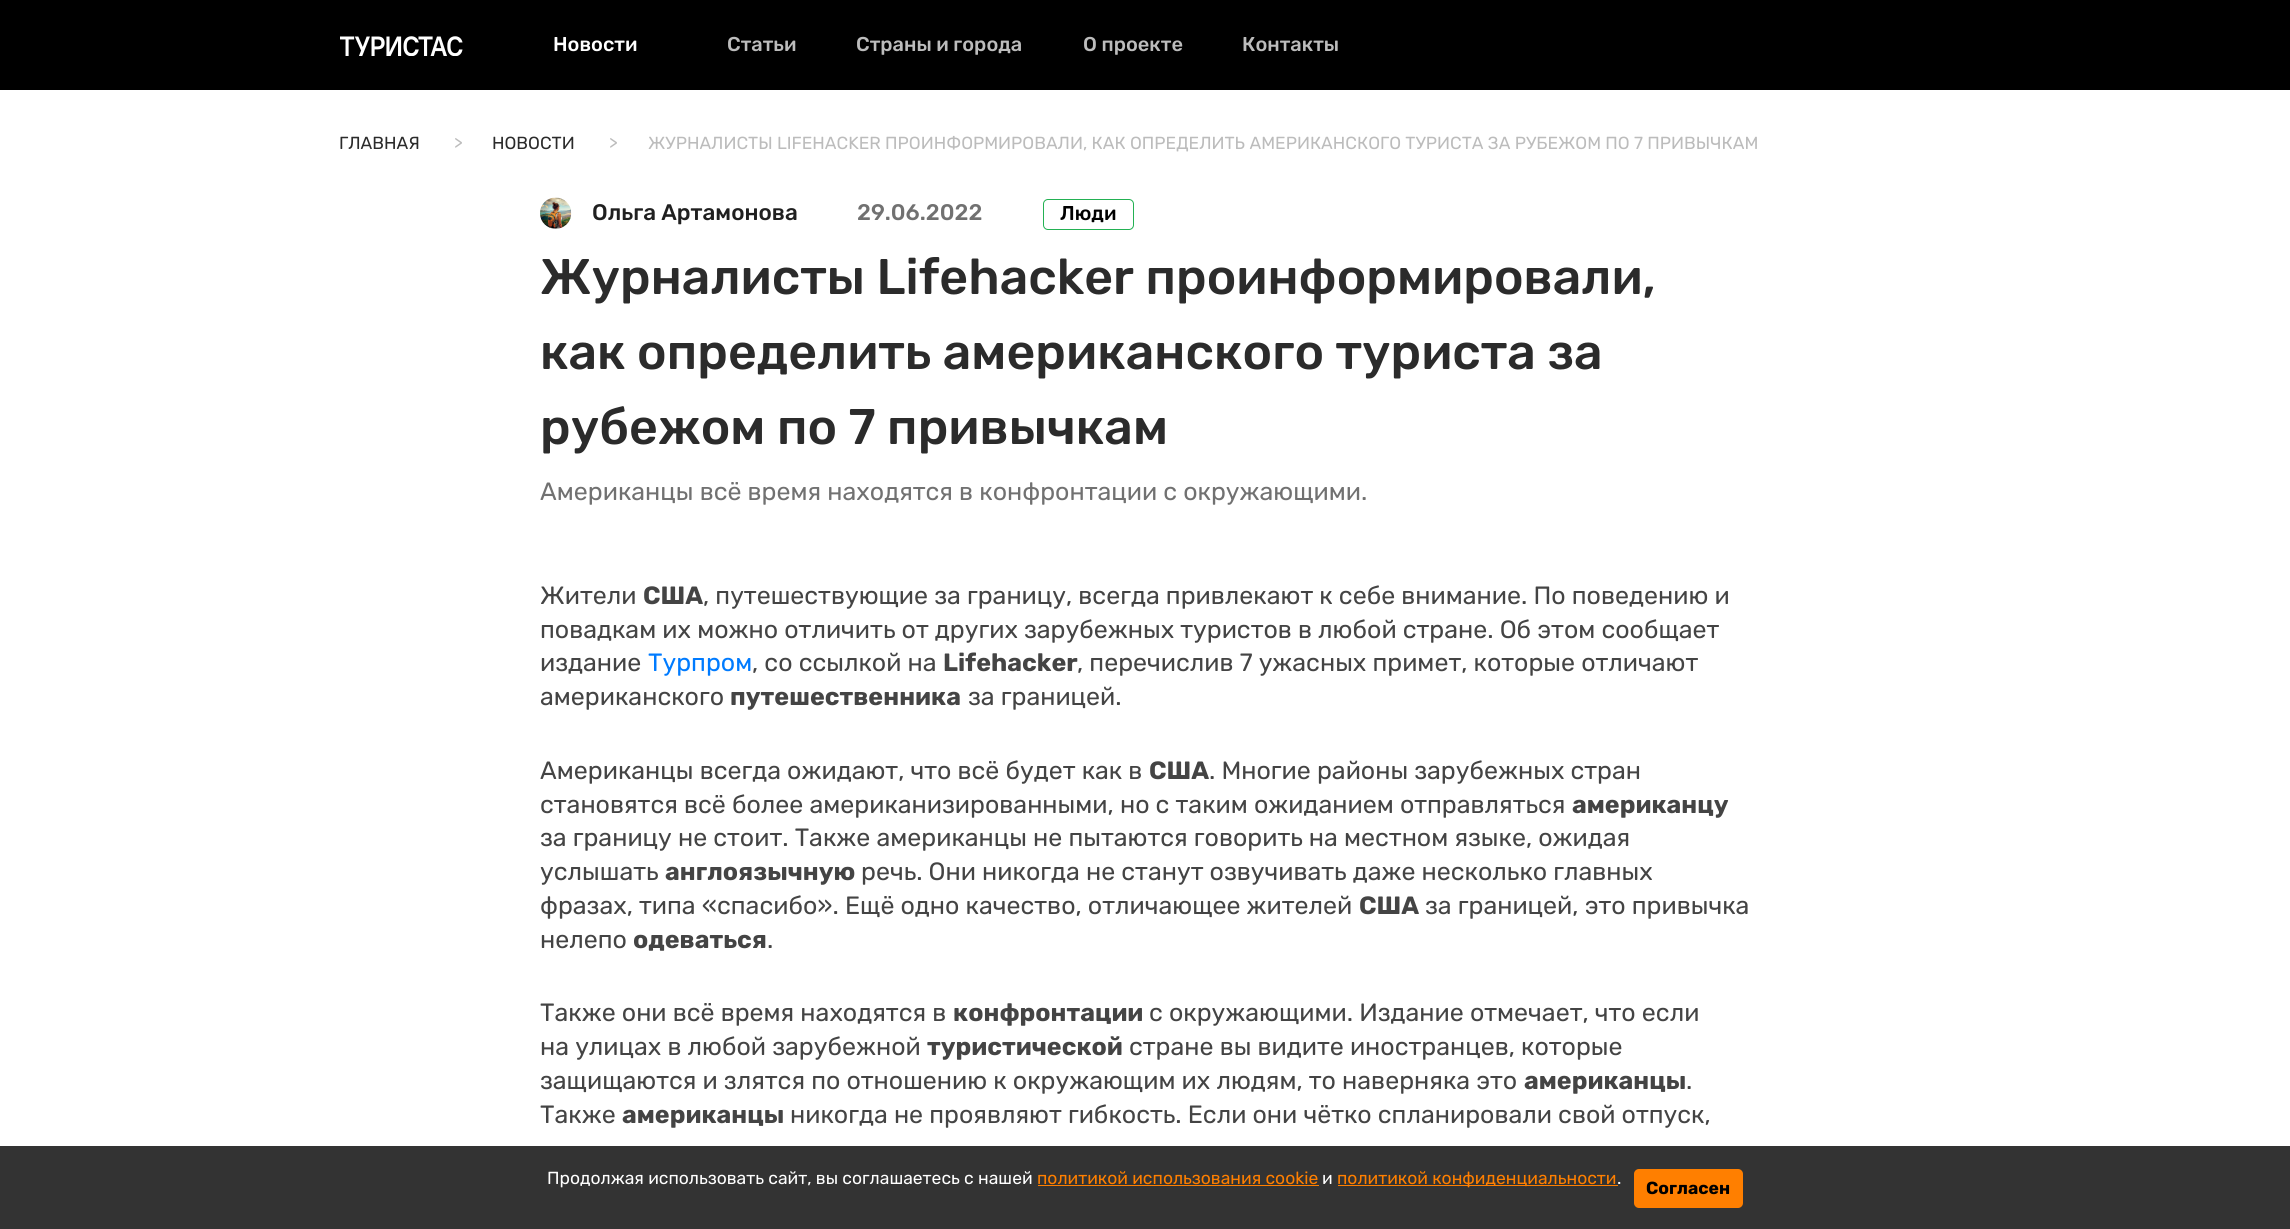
#include <cairo.h>
#include <math.h>
#include <stddef.h>

typedef struct { const char *family; double size; int italic, bold; unsigned color; } style_t;
static cairo_t *ctx;

static void ink(unsigned color) {
    cairo_set_source_rgb(ctx, (color >> 16) / 255.0, (color >> 8 & 255) / 255.0, (color & 255) / 255.0);
}

static void write(double x, double y, const char *s, const style_t *st) {
    cairo_select_font_face(ctx, st->family, st->italic ? CAIRO_FONT_SLANT_ITALIC : CAIRO_FONT_SLANT_NORMAL,
        st->bold ? CAIRO_FONT_WEIGHT_BOLD : CAIRO_FONT_WEIGHT_NORMAL);
    cairo_set_font_size(ctx, st->size);
    ink(st->color);
    cairo_move_to(ctx, x, y);
    cairo_show_text(ctx, s);
}

static void block(double x, double y, double w, double h, unsigned color) {
    ink(color);
    cairo_rectangle(ctx, x, y, w, h);
    cairo_fill(ctx);
}

static void round_path(double x, double y, double w, double h, double r) {
    cairo_new_sub_path(ctx);
    cairo_arc(ctx, x + w - r, y + h - r, r, 0, M_PI / 2);
    cairo_arc(ctx, x + r, y + h - r, r, M_PI / 2, M_PI);
    cairo_arc(ctx, x + r, y + r, r, M_PI, 1.5 * M_PI);
    cairo_arc(ctx, x + w - r, y + r, r, 1.5 * M_PI, 2 * M_PI);
    cairo_close_path(ctx);
}

static void paste(const char *path, double x, double y, double w, double h) {
    cairo_surface_t *image = cairo_image_surface_create_from_png(path);
    cairo_save(ctx);
    cairo_set_source_surface(ctx, image, x, y);
    cairo_rectangle(ctx, x, y, w, h);
    cairo_fill(ctx);
    cairo_restore(ctx);
    cairo_surface_destroy(image);
}

static const style_t s1 = {"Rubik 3 Light", 20, 0, 0, 0xffffff};
static const style_t s2 = {"Rubik 3 Light", 20, 0, 0, 0xbcbcbc};
static const style_t s3 = {"Rubik Light", 17.5, 0, 0, 0x2b2b2b};
static const style_t s4 = {"Rubik Light", 17.5, 0, 0, 0xbcbcbc};
static const style_t s5 = {"Rubik 3 Light", 22.5, 0, 0, 0x202020};
static const style_t s6 = {"Rubik 3 Light", 22.5, 0, 0, 0x717171};
static const style_t s7 = {"Rubik 3 Light", 20, 0, 0, 0x000000};
static const style_t s8 = {"Rubik 3 Light", 50, 0, 0, 0x2b2b2b};
static const style_t s9 = {"Rubik Light", 25, 0, 0, 0x717171};
static const style_t s10 = {"Rubik Light", 25, 0, 0, 0x444444};
static const style_t s11 = {"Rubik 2 Light", 25, 0, 0, 0x444444};
static const style_t s12 = {"Rubik Light", 25, 0, 0, 0x007bff};
static const style_t s13 = {"Rubik Light", 17.5, 0, 0, 0xffffff};
static const style_t s14 = {"Rubik Light", 17.5, 0, 0, 0xff7f00};
static const style_t s15 = {"Rubik 2 Light", 17.5, 0, 0, 0x000000};

int main(void) {
    cairo_surface_t *surface = cairo_image_surface_create(CAIRO_FORMAT_RGB24, 2290, 1229);
    ctx = cairo_create(surface);
    cairo_font_options_t *options = cairo_font_options_create();
    cairo_font_options_set_hint_metrics(options, CAIRO_HINT_METRICS_OFF);
    cairo_font_options_set_hint_style(options, CAIRO_HINT_STYLE_NONE);
    cairo_set_font_options(ctx, options);
    cairo_set_miter_limit(ctx, 4);
    ink(0xffffff);
    cairo_paint(ctx);
    block(0, 0, 2290, 90, 0x000000);
    paste("pic1.png", 340, 36, 123, 20);
    write(553, 51, "Новости", &s1);
    write(727, 51, "Статьи", &s2);
    write(856, 51, "Страны и города", &s2);
    write(1083, 51, "О проекте", &s2);
    write(1242, 51, "Контакты", &s2);
    write(339, 149, "ГЛАВНАЯ", &s3);
    write(454, 149, ">", &s4);
    write(492, 149, "НОВОСТИ", &s3);
    write(609, 149, ">", &s4);
    write(648, 149, "ЖУРНАЛИСТЫ LIFEHACKER ПРОИНФОРМИРОВАЛИ, КАК ОПРЕДЕЛИТЬ АМЕРИКАНСКОГО ТУРИСТА ЗА РУБЕЖОМ ПО 7 ПРИВЫЧКАМ", &s4);
    paste("pic2.png", 540, 197, 32, 32);
    write(592, 220, "Ольга Артамонова", &s5);
    write(857, 220, "29.06.2022", &s6);
    round_path(1043.5, 199.5, 90, 30, 4.5);
    ink(0x23b153);
    cairo_set_line_width(ctx, 1);
    cairo_stroke(ctx);
    write(1060, 220, "Люди", &s7);
    write(540, 294, "Журналисты Lifehacker проинформировали,", &s8);
    write(540, 369, "как определить американского туриста за", &s8);
    write(540, 444, "рубежом по 7 привычкам", &s8);
    write(540, 500, "Американцы всё время находятся в конфронтации с окружающими.", &s9);
    write(540, 604, "Жители", &s10);
    write(643, 604, "США", &s11);
    write(703, 604, ", путешествующие за границу, всегда привлекают к себе внимание. По поведению и", &s10);
    write(540, 638, "повадкам их можно отличить от других зарубежных туристов в любой стране. Об этом сообщает", &s10);
    write(540, 671, "издание", &s10);
    write(648, 671, "Турпром", &s12);
    write(752, 671, ", со ссылкой на", &s10);
    write(943, 671, "Lifehacker", &s11);
    write(1077, 671, ", перечислив 7 ужасных примет, которые отличают", &s10);
    write(540, 705, "американского", &s10);
    write(730, 705, "путешественника", &s11);
    write(968, 705, "за границей.", &s10);
    write(540, 779, "Американцы всегда ожидают, что всё будет как в", &s10);
    write(1149, 779, "США", &s11);
    write(1209, 779, ". Многие районы зарубежных стран", &s10);
    write(540, 813, "становятся всё более американизированными, но с таким ожиданием отправляться", &s10);
    write(1572, 813, "американцу", &s11);
    write(540, 846, "за границу не стоит. Также американцы не пытаются говорить на местном языке, ожидая", &s10);
    write(540, 880, "услышать", &s10);
    write(665, 880, "англоязычную", &s11);
    write(861, 880, "речь. Они никогда не станут озвучивать даже несколько главных", &s10);
    write(540, 914, "фразах, типа «спасибо». Ещё одно качество, отличающее жителей", &s10);
    write(1359, 914, "США", &s11);
    write(1425, 914, "за границей, это привычка", &s10);
    write(540, 948, "нелепо", &s10);
    write(633, 948, "одеваться", &s11);
    write(767, 948, ".", &s10);
    write(540, 1021, "Также они всё время находятся в", &s10);
    write(953, 1021, "конфронтации", &s11);
    write(1149, 1021, "с окружающими. Издание отмечает, что если", &s10);
    write(540, 1055, "на улицах в любой зарубежной", &s10);
    write(927, 1055, "туристической", &s11);
    write(1129, 1055, "стране вы видите иностранцев, которые", &s10);
    write(540, 1089, "защищаются и злятся по отношению к окружающим их людям, то наверняка это", &s10);
    write(1524, 1089, "американцы", &s11);
    write(1686, 1089, ".", &s10);
    write(540, 1123, "Также", &s10);
    write(622, 1123, "американцы", &s11);
    write(790, 1123, "никогда не проявляют гибкость. Если они чётко спланировали свой отпуск,", &s10);
    cairo_set_source_rgba(ctx, 0, 0, 0, 0.8);
    cairo_rectangle(ctx, 0, 1146, 2290, 83);
    cairo_fill(ctx);
    write(547, 1184, "Продолжая использовать сайт, вы соглашаетесь с нашей", &s13);
    write(1037, 1184, "политикой использования cookie", &s14);
    block(1038, 1185, 281, 1, 0xff7f00);
    write(1322, 1184, "и", &s13);
    block(1338, 1185, 280, 1, 0xff7f00);
    write(1337, 1184, "политикой конфиденциальности", &s14);
    write(1617, 1184, ".", &s13);
    ink(0xff7f00);
    round_path(1634, 1169, 109, 39, 5);
    cairo_fill(ctx);
    write(1646, 1194, "Согласен", &s15);
    cairo_surface_write_to_png(surface, "screenshot.png");
    cairo_font_options_destroy(options);
    cairo_destroy(ctx);
    cairo_surface_destroy(surface);
    return 0;
}
